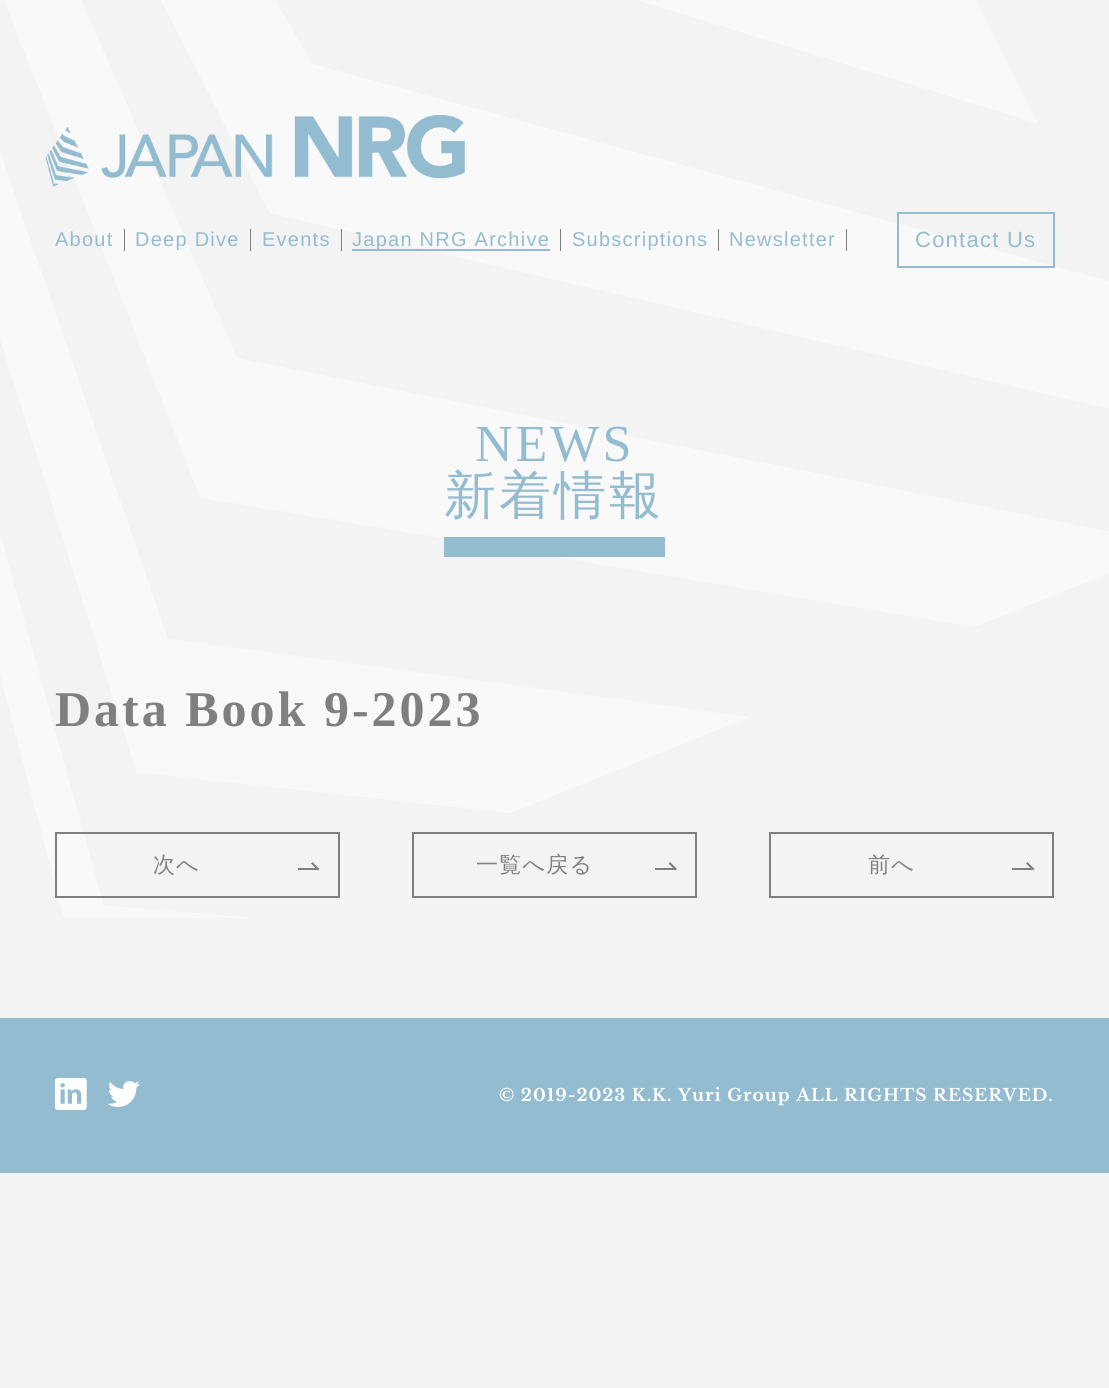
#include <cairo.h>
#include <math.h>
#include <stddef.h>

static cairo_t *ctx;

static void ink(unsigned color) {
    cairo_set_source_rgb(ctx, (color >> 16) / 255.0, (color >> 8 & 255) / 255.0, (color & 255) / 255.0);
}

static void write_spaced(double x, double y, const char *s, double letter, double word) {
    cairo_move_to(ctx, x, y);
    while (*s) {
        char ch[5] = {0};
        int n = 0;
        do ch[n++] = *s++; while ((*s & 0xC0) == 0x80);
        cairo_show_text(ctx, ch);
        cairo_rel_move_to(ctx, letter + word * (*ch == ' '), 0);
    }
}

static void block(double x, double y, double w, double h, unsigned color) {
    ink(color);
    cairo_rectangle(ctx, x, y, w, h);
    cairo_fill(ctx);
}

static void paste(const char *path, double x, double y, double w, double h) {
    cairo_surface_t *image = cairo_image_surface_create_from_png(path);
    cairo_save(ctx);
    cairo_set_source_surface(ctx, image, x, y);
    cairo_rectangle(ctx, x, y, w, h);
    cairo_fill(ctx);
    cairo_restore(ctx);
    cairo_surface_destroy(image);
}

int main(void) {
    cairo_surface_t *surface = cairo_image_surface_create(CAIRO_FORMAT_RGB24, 1109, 1388);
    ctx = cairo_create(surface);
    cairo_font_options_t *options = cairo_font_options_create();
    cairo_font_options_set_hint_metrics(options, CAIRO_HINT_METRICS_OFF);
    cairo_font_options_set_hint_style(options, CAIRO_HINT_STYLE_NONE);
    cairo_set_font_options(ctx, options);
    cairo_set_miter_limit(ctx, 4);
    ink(0xf3f3f4);
    cairo_paint(ctx);
    paste("pic1.png", 0, 0, 1109, 918);
    paste("pic2.png", 45, 115, 420, 72);
    block(124, 229, 1, 22, 0x7f7f80);
    cairo_select_font_face(ctx, "Liberation Sans", CAIRO_FONT_SLANT_NORMAL, CAIRO_FONT_WEIGHT_NORMAL);
    cairo_set_font_size(ctx, 20);
    ink(0x94bcd0);
    write_spaced(55, 246, "About", 1.25, 0);
    block(250, 229, 1, 22, 0x7f7f80);
    ink(0x94bcd0);
    write_spaced(135, 246, "Deep Dive", 1.25, 0);
    block(341, 229, 1, 22, 0x7f7f80);
    ink(0x94bcd0);
    write_spaced(262, 246, "Events", 1.25, 0);
    block(560, 229, 1, 22, 0x7f7f80);
    block(352, 249, 198, 2, 0x94bcd0);
    write_spaced(352, 246, "Japan NRG Archive", 1.25, 0);
    block(718, 229, 1, 22, 0x7f7f80);
    ink(0x94bcd0);
    write_spaced(572, 246, "Subscriptions", 1.25, 0);
    block(846, 229, 1, 22, 0x7f7f80);
    ink(0x94bcd0);
    write_spaced(729, 246, "Newsletter", 1.25, 0);
    cairo_rectangle(ctx, 898, 213, 156, 54);
    cairo_stroke(ctx);
    cairo_set_font_size(ctx, 22);
    write_spaced(915, 247, "Contact Us", 1.25, 0);
    cairo_select_font_face(ctx, "Liberation Serif", CAIRO_FONT_SLANT_NORMAL, CAIRO_FONT_WEIGHT_NORMAL);
    cairo_set_font_size(ctx, 52);
    write_spaced(475, 461, "NEWS", 3, 0);
    block(444, 537, 221, 20, 0x94bcd0);
    cairo_select_font_face(ctx, "WenQuanYi Zen Hei Medium", CAIRO_FONT_SLANT_NORMAL, CAIRO_FONT_WEIGHT_NORMAL);
    write_spaced(444, 513, "新着情報", 3, 0);
    cairo_select_font_face(ctx, "Liberation Serif", CAIRO_FONT_SLANT_NORMAL, CAIRO_FONT_WEIGHT_BOLD);
    cairo_set_font_size(ctx, 50);
    ink(0x7f7f80);
    write_spaced(55, 726, "Data Book 9-2023", 3, 0);
    cairo_rectangle(ctx, 56, 833, 283, 64);
    cairo_stroke(ctx);
    cairo_select_font_face(ctx, "WenQuanYi Zen Hei Medium", CAIRO_FONT_SLANT_NORMAL, CAIRO_FONT_WEIGHT_NORMAL);
    cairo_set_font_size(ctx, 22);
    write_spaced(153, 872, "次へ", 1.25, 0);
    block(298, 868, 20, 2, 0x7f7f80);
    cairo_new_path(ctx);
    cairo_move_to(ctx, 312.5, 862);
    cairo_line_to(ctx, 319.5, 869);
    cairo_line_to(ctx, 318, 870.5);
    cairo_line_to(ctx, 311, 863.5);
    cairo_close_path(ctx);
    cairo_fill(ctx);
    cairo_rectangle(ctx, 413, 833, 283, 64);
    cairo_stroke(ctx);
    write_spaced(476, 872, "一覧へ戻る", 1.25, 0);
    block(655, 868, 20, 2, 0x7f7f80);
    cairo_new_path(ctx);
    cairo_move_to(ctx, 670, 862);
    cairo_line_to(ctx, 677, 869);
    cairo_line_to(ctx, 675.5, 870.5);
    cairo_line_to(ctx, 668.5, 863.5);
    cairo_close_path(ctx);
    cairo_fill(ctx);
    cairo_rectangle(ctx, 770, 833, 283, 64);
    cairo_stroke(ctx);
    write_spaced(868, 872, "前へ", 1.25, 0);
    block(1012, 868, 20, 2, 0x7f7f80);
    cairo_new_path(ctx);
    cairo_move_to(ctx, 1027.5, 862);
    cairo_line_to(ctx, 1034.5, 869);
    cairo_line_to(ctx, 1033, 870.5);
    cairo_line_to(ctx, 1026, 863.5);
    cairo_close_path(ctx);
    cairo_fill(ctx);
    block(0, 1018, 1109, 155, 0x94bcd0);
    paste("pic3.png", 55, 1078, 32, 32);
    paste("pic4.png", 107, 1081, 33, 26);
    cairo_select_font_face(ctx, "Libre Baskerville", CAIRO_FONT_SLANT_NORMAL, CAIRO_FONT_WEIGHT_BOLD);
    cairo_set_font_size(ctx, 17);
    ink(0xffffff);
    write_spaced(499, 1101, "© 2019-2023 K.K. Yuri Group ALL RIGHTS RESERVED.", 1, 0);
    cairo_surface_write_to_png(surface, "screenshot.png");
    cairo_font_options_destroy(options);
    cairo_destroy(ctx);
    cairo_surface_destroy(surface);
    return 0;
}
